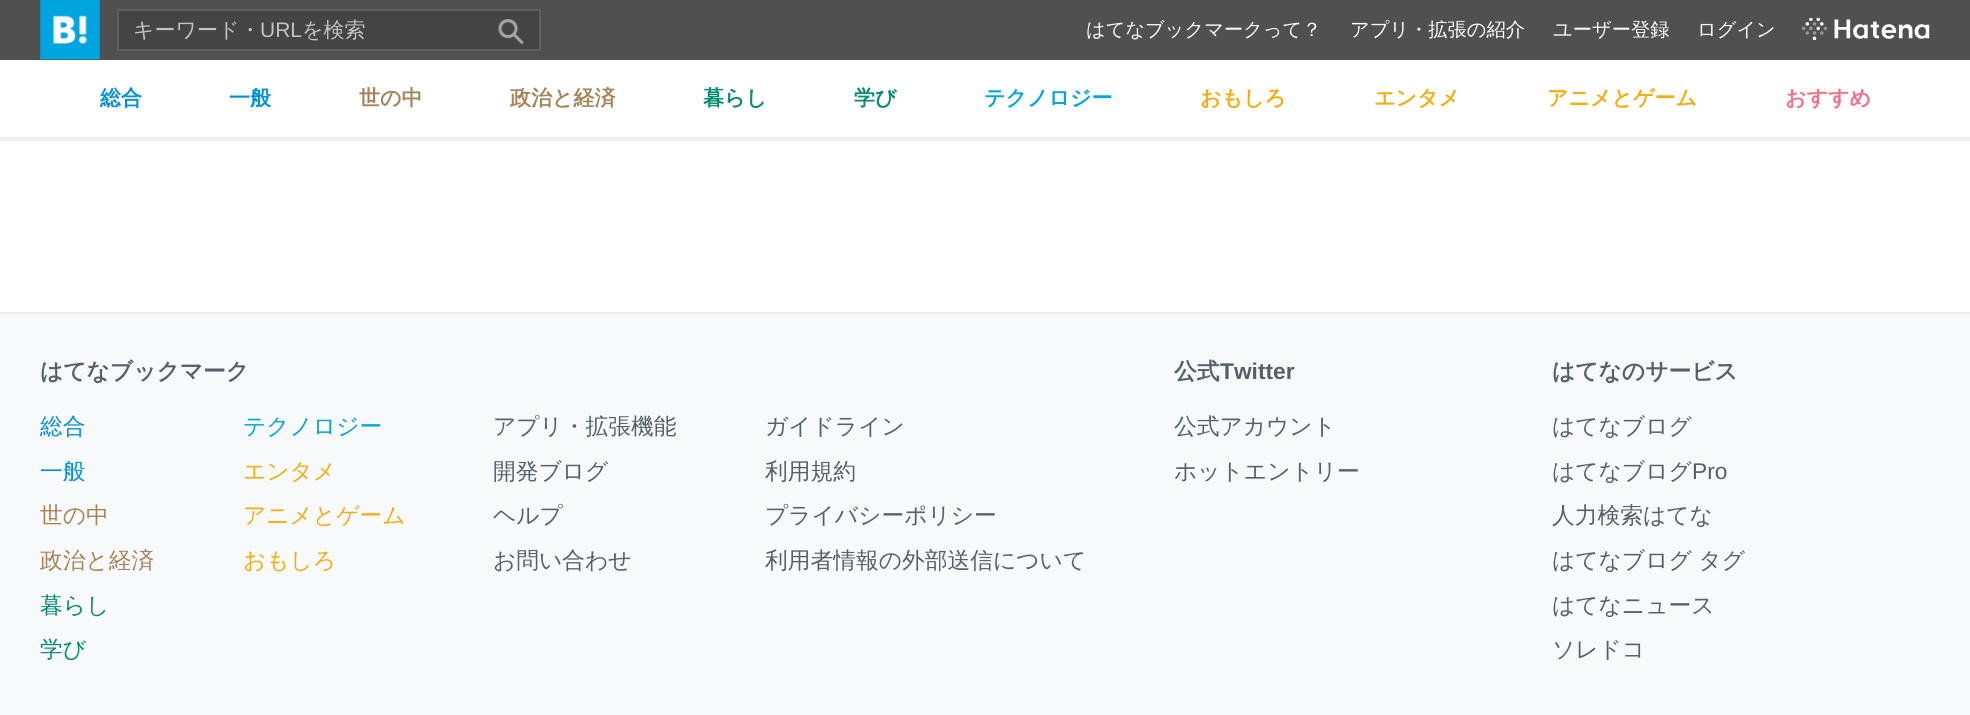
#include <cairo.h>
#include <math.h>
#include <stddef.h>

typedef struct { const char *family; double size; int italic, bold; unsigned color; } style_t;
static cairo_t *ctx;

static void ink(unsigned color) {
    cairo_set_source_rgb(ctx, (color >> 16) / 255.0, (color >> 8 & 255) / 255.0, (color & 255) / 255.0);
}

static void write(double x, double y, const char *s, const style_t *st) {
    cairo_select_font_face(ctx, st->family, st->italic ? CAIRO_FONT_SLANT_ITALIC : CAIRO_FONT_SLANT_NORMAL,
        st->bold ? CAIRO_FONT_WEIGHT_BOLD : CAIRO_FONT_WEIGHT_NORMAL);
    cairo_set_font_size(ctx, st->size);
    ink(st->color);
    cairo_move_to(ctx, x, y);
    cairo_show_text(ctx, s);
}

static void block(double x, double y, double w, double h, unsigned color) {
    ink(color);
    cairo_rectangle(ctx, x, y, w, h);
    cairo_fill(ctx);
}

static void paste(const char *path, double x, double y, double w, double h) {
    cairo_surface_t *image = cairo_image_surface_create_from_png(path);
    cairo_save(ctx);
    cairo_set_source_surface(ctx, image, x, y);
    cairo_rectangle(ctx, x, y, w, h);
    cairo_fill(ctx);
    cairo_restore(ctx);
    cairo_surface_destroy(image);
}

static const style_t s1 = {"WenQuanYi Zen Hei Medium", 21, 0, 0, 0xc2c2c2};
static const style_t s2 = {"Liberation Sans", 21, 0, 0, 0xc2c2c2};
static const style_t s3 = {"WenQuanYi Zen Hei Medium", 19.25, 0, 0, 0xffffff};
static const style_t s4 = {"WenQuanYi Zen Hei", 21, 0, 1, 0x008fde};
static const style_t s5 = {"WenQuanYi Zen Hei", 21, 0, 1, 0xa78358};
static const style_t s6 = {"WenQuanYi Zen Hei", 21, 0, 1, 0x068b71};
static const style_t s7 = {"WenQuanYi Zen Hei", 21, 0, 1, 0x00a5de};
static const style_t s8 = {"WenQuanYi Zen Hei", 21, 0, 1, 0xf5ac0f};
static const style_t s9 = {"WenQuanYi Zen Hei", 21, 0, 1, 0xff6b83};
static const style_t s10 = {"WenQuanYi Zen Hei", 22.75, 0, 1, 0x55606a};
static const style_t s11 = {"WenQuanYi Zen Hei Medium", 22.75, 0, 0, 0x008fde};
static const style_t s12 = {"WenQuanYi Zen Hei Medium", 22.75, 0, 0, 0xa78358};
static const style_t s13 = {"WenQuanYi Zen Hei Medium", 22.75, 0, 0, 0x068b71};
static const style_t s14 = {"WenQuanYi Zen Hei Medium", 22.75, 0, 0, 0x00a5de};
static const style_t s15 = {"WenQuanYi Zen Hei Medium", 22.75, 0, 0, 0xf5ac0f};
static const style_t s16 = {"WenQuanYi Zen Hei Medium", 22.75, 0, 0, 0x55606a};
static const style_t s17 = {"Liberation Sans", 22.75, 0, 1, 0x55606a};
static const style_t s18 = {"Liberation Sans", 22.75, 0, 0, 0x55606a};

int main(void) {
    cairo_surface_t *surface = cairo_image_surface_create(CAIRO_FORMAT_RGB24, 1970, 715);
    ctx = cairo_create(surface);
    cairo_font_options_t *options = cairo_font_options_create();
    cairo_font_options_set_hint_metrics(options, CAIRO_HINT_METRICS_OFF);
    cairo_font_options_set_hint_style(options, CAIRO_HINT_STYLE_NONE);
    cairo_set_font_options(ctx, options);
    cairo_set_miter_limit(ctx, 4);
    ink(0xffffff);
    cairo_paint(ctx);
    block(0, 0, 1970, 60, 0x505050);
    paste("pic1.png", 40, 0, 61, 60);
    ink(0x444444);
    cairo_rectangle(ctx, 118, 10, 422, 40);
    cairo_fill_preserve(ctx);
    ink(0x606060);
    cairo_stroke(ctx);
    write(133, 37, "キーワード・", &s1);
    write(260, 37, "URL", &s2);
    write(302, 37, "を検索", &s1);
    paste("pic2.png", 498, 19, 26, 25);
    write(1086, 36, "はてなブックマークって？", &s3);
    write(1350, 36, "アプリ・拡張の紹介", &s3);
    write(1553, 36, "ユーザー登録", &s3);
    write(1697, 36, "ログイン", &s3);
    paste("pic3.png", 1801, 18, 129, 22);
    block(0, 137, 1970, 4, 0xeeeeee);
    write(100, 105, "総合", &s4);
    write(229, 105, "一般", &s4);
    write(359, 105, "世の中", &s5);
    write(510, 105, "政治と経済", &s5);
    write(703, 105, "暮らし", &s6);
    write(854, 105, "学び", &s6);
    write(984, 105, "テクノロジー", &s7);
    write(1200, 105, "おもしろ", &s8);
    write(1374, 105, "エンタメ", &s8);
    write(1547, 105, "アニメとゲーム", &s8);
    write(1785, 105, "おすすめ", &s9);
    block(0, 314, 1970, 401, 0xf8f9fa);
    block(0, 312, 1970, 2, 0xeeeeee);
    write(40, 379, "はてなブックマーク", &s10);
    write(40, 434, "総合", &s11);
    write(40, 479, "一般", &s11);
    write(40, 523, "世の中", &s12);
    write(40, 568, "政治と経済", &s12);
    write(40, 613, "暮らし", &s13);
    write(40, 657, "学び", &s13);
    write(243, 434, "テクノロジー", &s14);
    write(243, 479, "エンタメ", &s15);
    write(243, 523, "アニメとゲーム", &s15);
    write(243, 568, "おもしろ", &s15);
    write(493, 434, "アプリ・拡張機能", &s16);
    write(493, 479, "開発ブログ", &s16);
    write(493, 523, "ヘルプ", &s16);
    write(493, 568, "お問い合わせ", &s16);
    write(765, 434, "ガイドライン", &s16);
    write(765, 479, "利用規約", &s16);
    write(765, 523, "プライバシーポリシー", &s16);
    write(765, 568, "利用者情報の外部送信について", &s16);
    write(1174, 379, "公式", &s10);
    write(1220, 379, "Twitter", &s17);
    write(1174, 434, "公式アカウント", &s16);
    write(1174, 479, "ホットエントリー", &s16);
    write(1552, 379, "はてなのサービス", &s10);
    write(1552, 434, "はてなブログ", &s16);
    write(1552, 479, "はてなブログ", &s16);
    write(1692, 479, "Pro", &s18);
    write(1552, 523, "人力検索はてな", &s16);
    write(1552, 568, "はてなブログ タグ", &s16);
    write(1552, 613, "はてなニュース", &s16);
    write(1552, 657, "ソレドコ", &s16);
    cairo_surface_write_to_png(surface, "screenshot.png");
    cairo_font_options_destroy(options);
    cairo_destroy(ctx);
    cairo_surface_destroy(surface);
    return 0;
}
